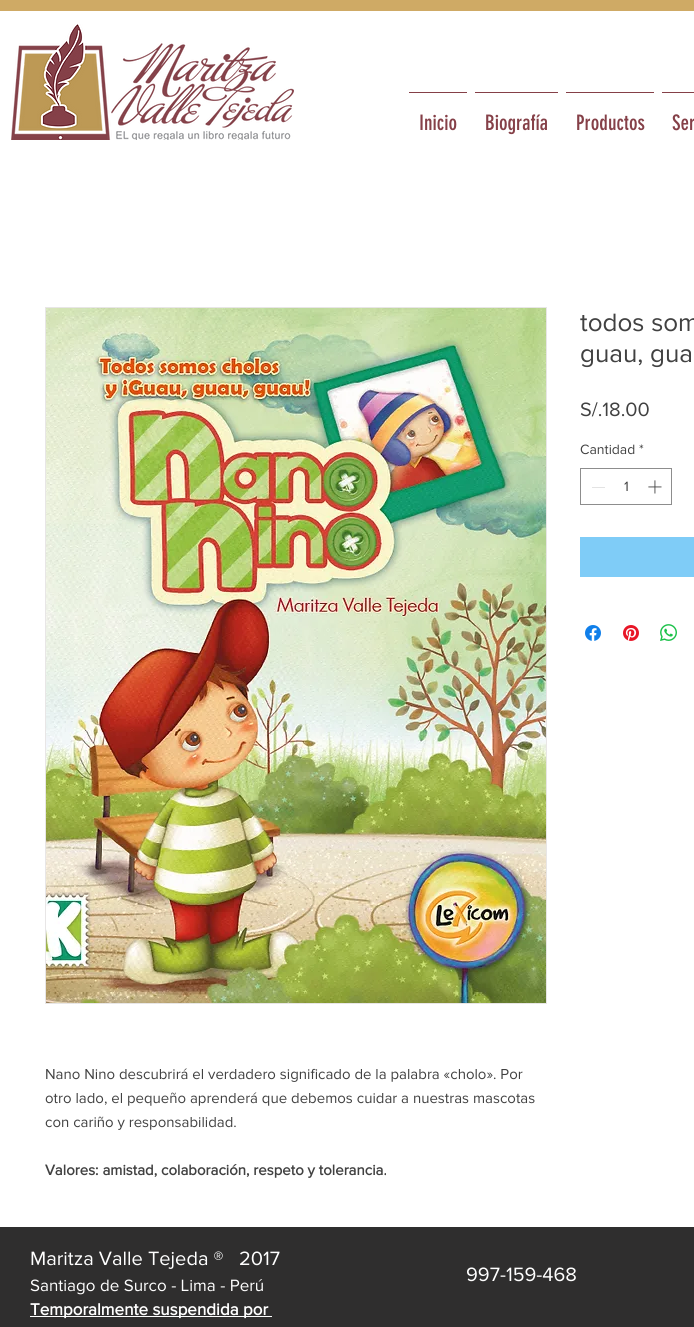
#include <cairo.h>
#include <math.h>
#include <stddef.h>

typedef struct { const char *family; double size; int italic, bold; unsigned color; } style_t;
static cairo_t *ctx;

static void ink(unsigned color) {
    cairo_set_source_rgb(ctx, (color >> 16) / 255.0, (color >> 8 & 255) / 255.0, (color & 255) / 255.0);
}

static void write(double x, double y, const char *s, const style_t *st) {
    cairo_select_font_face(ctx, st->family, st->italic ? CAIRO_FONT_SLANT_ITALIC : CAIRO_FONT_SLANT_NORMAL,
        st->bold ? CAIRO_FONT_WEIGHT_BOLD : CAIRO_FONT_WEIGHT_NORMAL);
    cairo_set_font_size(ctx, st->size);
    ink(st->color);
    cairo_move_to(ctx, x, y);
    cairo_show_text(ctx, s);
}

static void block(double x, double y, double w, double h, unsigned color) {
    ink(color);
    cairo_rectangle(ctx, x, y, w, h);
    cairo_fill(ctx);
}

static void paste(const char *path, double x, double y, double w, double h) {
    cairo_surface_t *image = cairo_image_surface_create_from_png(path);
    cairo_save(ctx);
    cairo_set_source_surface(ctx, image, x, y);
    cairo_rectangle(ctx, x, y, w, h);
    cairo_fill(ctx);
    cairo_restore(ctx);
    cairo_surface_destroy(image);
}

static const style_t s1 = {"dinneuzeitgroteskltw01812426", 21, 0, 0, 0x854048};
static const style_t s2 = {"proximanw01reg", 26, 0, 0, 0x414141};
static const style_t s3 = {"proximanw01reg", 20, 0, 0, 0x414141};
static const style_t s4 = {"proximanw01reg", 14, 0, 0, 0x414141};
static const style_t s5 = {"proximanw01reg", 15, 0, 0, 0x414141};
static const style_t s6 = {"proximanw01reg", 15, 0, 1, 0x414141};
static const style_t s7 = {"proximanw01reg", 20, 0, 0, 0xffffff};
static const style_t s8 = {"proximanw01reg", 17, 0, 0, 0xffffff};
static const style_t s9 = {"proximanw01reg", 17, 0, 1, 0xffffff};

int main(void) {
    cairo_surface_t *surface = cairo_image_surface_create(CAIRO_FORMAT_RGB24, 694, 1327);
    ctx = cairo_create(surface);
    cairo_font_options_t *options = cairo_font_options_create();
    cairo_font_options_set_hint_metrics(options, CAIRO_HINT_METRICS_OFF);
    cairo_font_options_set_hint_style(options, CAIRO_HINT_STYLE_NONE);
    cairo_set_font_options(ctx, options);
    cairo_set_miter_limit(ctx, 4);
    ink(0xffffff);
    cairo_paint(ctx);
    block(0, 0, 694, 11, 0xcfaa65);
    paste("pic1.png", 11, 24, 283, 116);
    block(409, 92, 58, 1, 0x854048);
    write(419, 130, "Inicio", &s1);
    block(475, 92, 83, 1, 0x854048);
    write(485, 130, "Biografía", &s1);
    block(566, 92, 88, 1, 0x854048);
    write(576, 130, "Productos", &s1);
    block(662, 92, 32, 1, 0x854048);
    write(672, 130, "Ser", &s1);
    write(580, 331, "todos som", &s2);
    write(580, 362, "guau, gua", &s2);
    write(580, 416, "S/.18.00", &s3);
    write(580, 454, "Cantidad", &s4);
    write(639, 454, "*", &s4);
    cairo_rectangle(ctx, 580.5, 468.5, 91, 36);
    ink(0x8d8d8d);
    cairo_set_line_width(ctx, 1);
    cairo_stroke(ctx);
    block(592, 487, 13, 1, 0xe3e3e3);
    write(624, 491, "1", &s4);
    paste("pic2.png", 648, 480, 14, 14);
    block(580, 537, 114, 40, 0x7fccf7);
    paste("pic3.png", 585, 625, 16, 16);
    paste("pic4.png", 623, 625, 16, 16);
    paste("pic5.png", 660, 624, 17, 17);
    cairo_rectangle(ctx, 45.5, 307.5, 501, 696);
    ink(0xe8e6e6);
    cairo_stroke(ctx);
    paste("pic6.png", 46, 308, 500, 695);
    write(45, 1079, "Nano Nino descubrirá el verdadero significado de la palabra «cholo». Por", &s5);
    write(45, 1103, "otro lado, el pequeño aprenderá que debemos cuidar a nuestras mascotas", &s5);
    write(45, 1127, "con cariño y responsabilidad.", &s5);
    write(45, 1175, "Valores: amistad, colaboración, respeto y tolerancia.", &s6);
    block(0, 1227, 694, 100, 0x2f2e2e);
    write(30, 1265, "Maritza Valle Tejeda ®   2017", &s7);
    write(466, 1281, "997-159-468", &s7);
    write(30, 1291, "Santiago de Surco - Lima - Perú", &s8);
    block(30, 1316, 242, 1, 0xffffff);
    write(30, 1315, "Temporalmente suspendida por", &s9);
    cairo_surface_write_to_png(surface, "screenshot.png");
    cairo_font_options_destroy(options);
    cairo_destroy(ctx);
    cairo_surface_destroy(surface);
    return 0;
}
